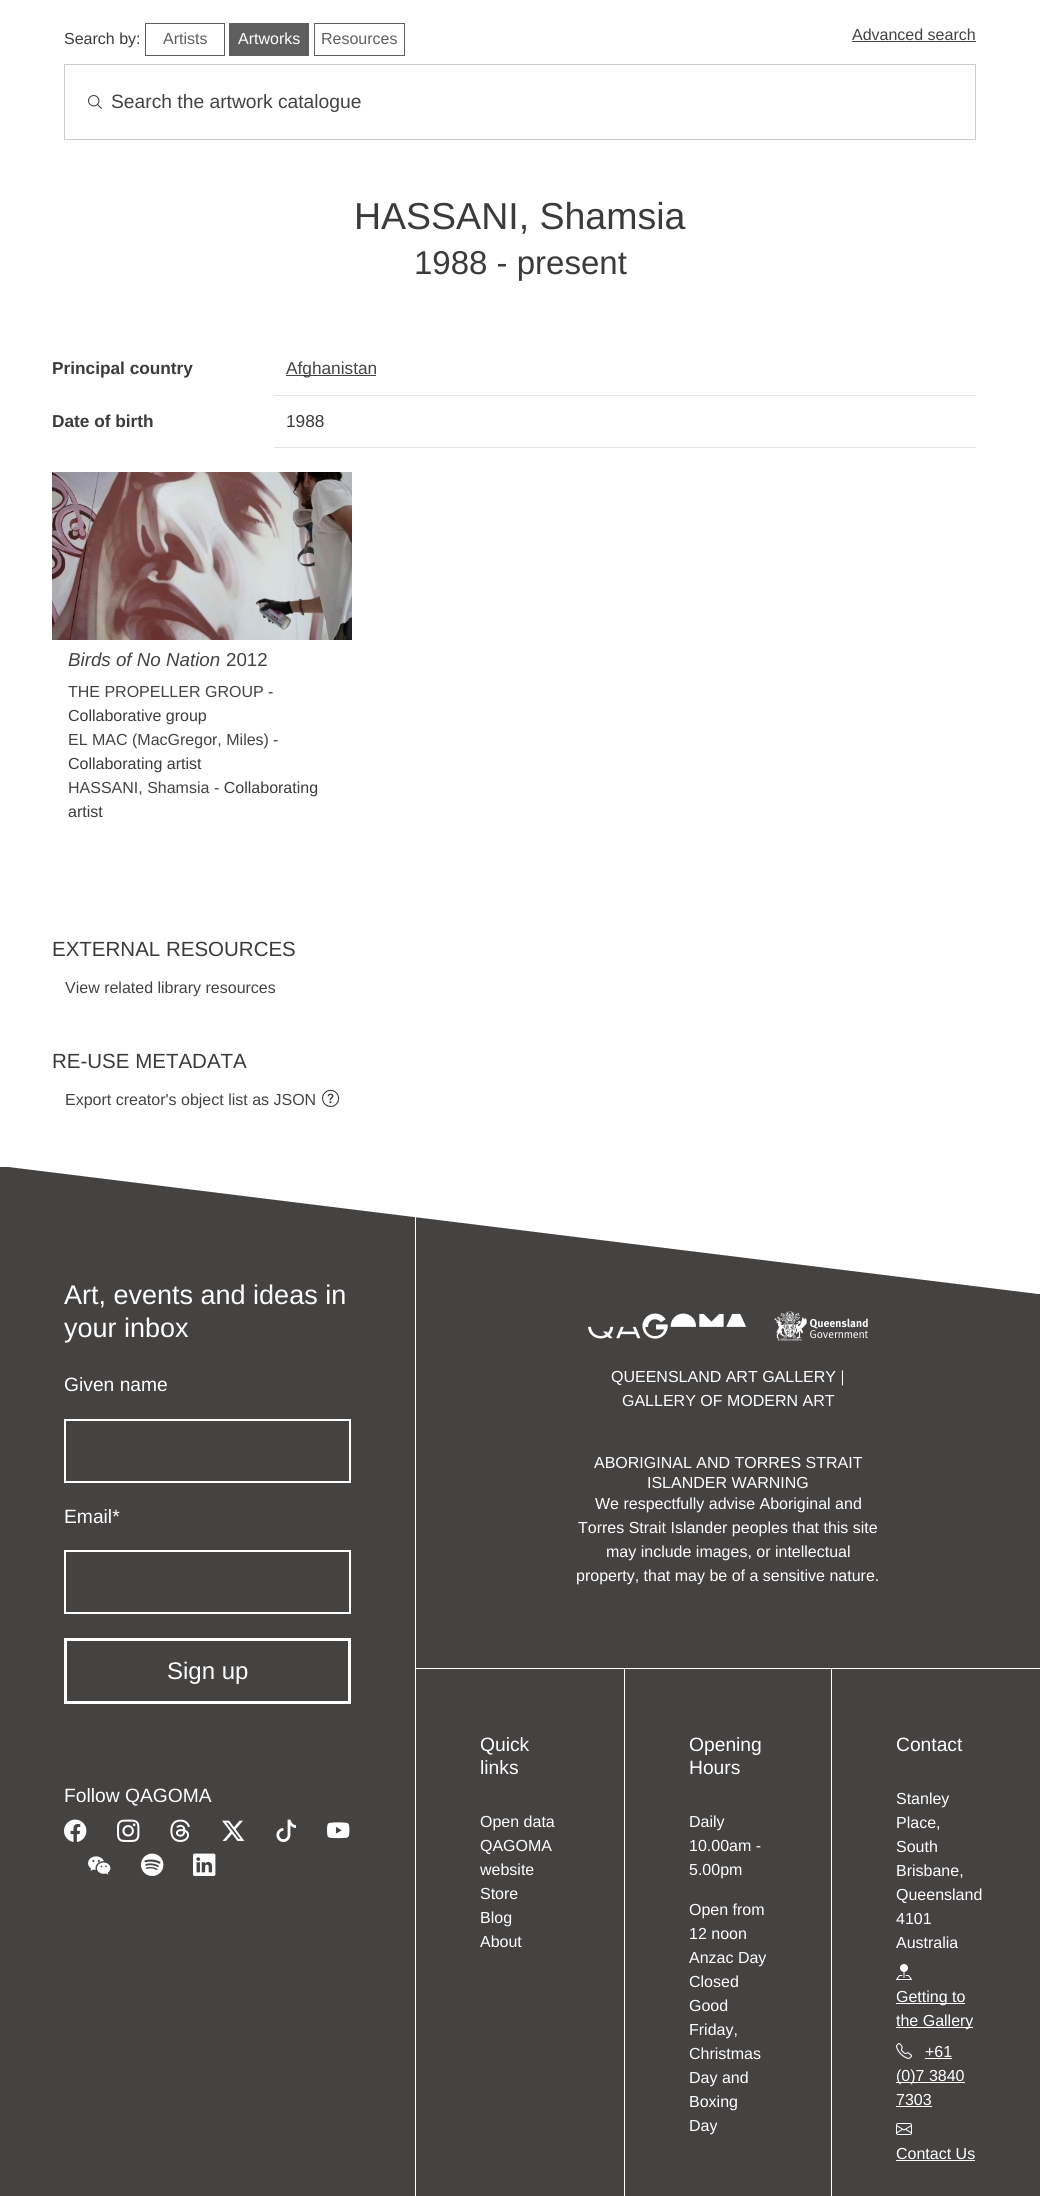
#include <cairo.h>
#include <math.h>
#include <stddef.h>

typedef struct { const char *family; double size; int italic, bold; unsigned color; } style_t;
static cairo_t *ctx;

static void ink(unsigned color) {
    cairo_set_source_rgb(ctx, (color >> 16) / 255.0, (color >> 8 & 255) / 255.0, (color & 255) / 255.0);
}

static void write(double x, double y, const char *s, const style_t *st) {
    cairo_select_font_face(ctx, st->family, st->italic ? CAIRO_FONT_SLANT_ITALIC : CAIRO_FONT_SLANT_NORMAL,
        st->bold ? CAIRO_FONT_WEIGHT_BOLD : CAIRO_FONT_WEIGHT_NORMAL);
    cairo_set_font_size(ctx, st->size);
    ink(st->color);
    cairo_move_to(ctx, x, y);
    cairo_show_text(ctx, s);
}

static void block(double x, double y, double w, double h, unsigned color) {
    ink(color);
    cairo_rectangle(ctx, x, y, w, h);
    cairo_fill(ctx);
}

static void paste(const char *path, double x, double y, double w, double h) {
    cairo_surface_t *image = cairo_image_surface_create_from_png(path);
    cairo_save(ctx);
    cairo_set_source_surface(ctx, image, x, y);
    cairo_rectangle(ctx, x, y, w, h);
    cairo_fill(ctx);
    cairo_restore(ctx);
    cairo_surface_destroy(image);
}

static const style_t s1 = {"Liberation Sans", 16, 0, 0, 0x3b3b3b};
static const style_t s2 = {"Liberation Sans", 16, 0, 0, 0x5f5f5f};
static const style_t s3 = {"Liberation Sans", 16, 0, 0, 0xffffff};
static const style_t s4 = {"Liberation Sans", 16, 0, 0, 0x454242};
static const style_t s5 = {"Liberation Sans", 19.25, 0, 0, 0x454242};
static const style_t s6 = {"Liberation Sans", 37.5, 0, 0, 0x3b3b3b};
static const style_t s7 = {"Liberation Sans", 33, 0, 0, 0x3b3b3b};
static const style_t s8 = {"Liberation Sans", 17.25, 0, 1, 0x3b3b3b};
static const style_t s9 = {"Liberation Sans", 17.25, 0, 0, 0x454242};
static const style_t s10 = {"Liberation Sans", 17.25, 0, 0, 0x3b3b3b};
static const style_t s11 = {"Liberation Sans", 18.75, 1, 0, 0x454242};
static const style_t s12 = {"Liberation Sans", 18.75, 0, 0, 0x454242};
static const style_t s13 = {"Liberation Sans", 20.5, 0, 0, 0x3b3b3b};
static const style_t s14 = {"Liberation Sans", 27, 0, 0, 0xffffff};
static const style_t s15 = {"Liberation Sans", 19.25, 0, 0, 0xffffff};
static const style_t s16 = {"Liberation Sans", 24, 0, 0, 0xffffff};

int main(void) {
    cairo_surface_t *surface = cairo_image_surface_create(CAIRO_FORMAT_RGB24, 1040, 2196);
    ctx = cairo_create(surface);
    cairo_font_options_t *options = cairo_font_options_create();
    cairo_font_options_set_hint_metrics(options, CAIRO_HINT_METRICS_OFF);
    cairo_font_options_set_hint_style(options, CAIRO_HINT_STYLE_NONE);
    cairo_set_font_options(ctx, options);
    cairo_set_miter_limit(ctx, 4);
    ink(0xffffff);
    cairo_paint(ctx);
    write(64, 44, "Search by:", &s1);
    cairo_rectangle(ctx, 145.5, 23.5, 79, 32);
    ink(0x5f5f5f);
    cairo_set_line_width(ctx, 1);
    cairo_stroke(ctx);
    write(163, 44, "Artists", &s2);
    block(229, 23, 80, 33, 0x5f5f5f);
    write(238, 44, "Artworks", &s3);
    cairo_rectangle(ctx, 314.5, 23.5, 90, 32);
    ink(0x5f5f5f);
    cairo_stroke(ctx);
    write(321, 44, "Resources", &s2);
    write(852, 40, "Advanced search", &s4);
    block(852, 41, 124, 1, 0x454242);
    cairo_rectangle(ctx, 64.5, 64.5, 911, 75);
    ink(0xcccccc);
    cairo_stroke(ctx);
    paste("pic1.png", 88, 95, 14, 14);
    write(111, 108, "Search the artwork catalogue", &s5);
    write(354, 229, "HASSANI, Shamsia", &s6);
    write(414, 274, "1988 - present", &s7);
    write(52, 374, "Principal country", &s8);
    block(274, 395, 702, 1, 0xe5e5e5);
    block(286, 375, 90, 1, 0x454242);
    write(286, 374, "Afghanistan", &s9);
    write(52, 427, "Date of birth", &s8);
    block(274, 447, 702, 1, 0xe5e5e5);
    write(286, 427, "1988", &s10);
    paste("pic2.png", 52, 472, 300, 168);
    write(68, 666, "Birds of No Nation", &s11);
    write(226, 666, "2012", &s12);
    write(68, 697, "THE PROPELLER GROUP", &s4);
    write(268, 697, "-", &s1);
    write(68, 721, "Collaborative group", &s1);
    write(68, 745, "EL MAC (MacGregor, Miles)", &s4);
    write(273, 745, "-", &s1);
    write(68, 769, "Collaborating artist", &s1);
    write(68, 793, "HASSANI, Shamsia", &s4);
    write(214, 793, "- Collaborating", &s1);
    write(68, 817, "artist", &s1);
    write(52, 956, "EXTERNAL RESOURCES", &s13);
    write(65, 993, "View related library resources", &s4);
    write(52, 1068, "RE-USE METADATA", &s13);
    write(65, 1105, "Export creator's object list as JSON", &s4);
    paste("pic3.png", 322, 1089, 18, 18);
    block(0, 1167, 1040, 1029, 0x454242);
    block(415, 1215, 1, 981, 0xffffff);
    cairo_new_path(ctx);
    cairo_move_to(ctx, 0, 1166);
    cairo_line_to(ctx, 1040, 1166);
    cairo_line_to(ctx, 1040, 1294);
    cairo_line_to(ctx, 1038, 1294);
    cairo_close_path(ctx);
    cairo_fill(ctx);
    write(64, 1304, "Art, events and ideas in", &s14);
    write(64, 1337, "your inbox", &s14);
    write(64, 1391, "Given name", &s15);
    cairo_rectangle(ctx, 65, 1420, 285, 62);
    cairo_set_line_width(ctx, 2);
    cairo_stroke(ctx);
    write(64, 1523, "Email*", &s15);
    cairo_rectangle(ctx, 65, 1551, 285, 62);
    cairo_stroke(ctx);
    cairo_rectangle(ctx, 65.5, 1639.5, 284, 63);
    cairo_set_line_width(ctx, 3);
    cairo_stroke(ctx);
    write(167, 1679, "Sign up", &s16);
    write(64, 1802, "Follow QAGOMA", &s15);
    paste("pic4.png", 64, 1819, 23, 23);
    paste("pic5.png", 117, 1819, 23, 23);
    paste("pic6.png", 170, 1819, 20, 23);
    paste("pic7.png", 222, 1820, 23, 21);
    paste("pic8.png", 276, 1819, 20, 23);
    paste("pic9.png", 327, 1822, 23, 17);
    paste("pic10.png", 88, 1856, 23, 19);
    paste("pic11.png", 141, 1853, 23, 23);
    paste("pic12.png", 193, 1853, 23, 23);
    block(416, 1668, 624, 1, 0xffffff);
    paste("pic13.png", 588, 1311, 280, 30);
    write(611, 1382, "QUEENSLAND ART GALLERY |", &s3);
    write(622, 1406, "GALLERY OF MODERN ART", &s3);
    write(594, 1468, "ABORIGINAL AND TORRES STRAIT", &s3);
    write(647, 1488, "ISLANDER WARNING", &s3);
    write(595, 1509, "We respectfully advise Aboriginal and", &s3);
    write(578, 1533, "Torres Strait Islander peoples that this site", &s3);
    write(606, 1557, "may include images, or intellectual", &s3);
    write(576, 1581, "property, that may be of a sensitive nature.", &s3);
    write(480, 1751, "Quick", &s15);
    write(480, 1774, "links", &s15);
    write(480, 1827, "Open data", &s3);
    write(480, 1851, "QAGOMA", &s3);
    write(480, 1875, "website", &s3);
    write(480, 1899, "Store", &s3);
    write(480, 1923, "Blog", &s3);
    write(480, 1947, "About", &s3);
    block(831, 1669, 1, 527, 0xffffff);
    block(624, 1669, 1, 527, 0xffffff);
    write(689, 1751, "Opening", &s15);
    write(689, 1774, "Hours", &s15);
    write(689, 1827, "Daily", &s3);
    write(689, 1851, "10.00am -", &s3);
    write(689, 1875, "5.00pm", &s3);
    write(689, 1915, "Open from", &s3);
    write(689, 1939, "12 noon", &s3);
    write(689, 1963, "Anzac Day", &s3);
    write(689, 1987, "Closed", &s3);
    write(689, 2011, "Good", &s3);
    write(689, 2035, "Friday,", &s3);
    write(689, 2059, "Christmas", &s3);
    write(689, 2083, "Day and", &s3);
    write(689, 2107, "Boxing", &s3);
    write(689, 2131, "Day", &s3);
    write(896, 1751, "Contact", &s15);
    write(896, 1804, "Stanley", &s3);
    write(896, 1828, "Place,", &s3);
    write(896, 1852, "South", &s3);
    write(896, 1876, "Brisbane,", &s3);
    write(896, 1900, "Queensland", &s3);
    write(896, 1924, "4101", &s3);
    write(896, 1948, "Australia", &s3);
    paste("pic14.png", 896, 1964, 16, 16);
    block(896, 2003, 69, 1, 0xffffff);
    write(896, 2002, "Getting to", &s3);
    block(896, 2027, 77, 1, 0xffffff);
    write(896, 2026, "the Gallery", &s3);
    paste("pic15.png", 896, 2043, 16, 16);
    write(925, 2057, "+61", &s3);
    block(925, 2058, 27, 1, 0xffffff);
    block(896, 2082, 69, 1, 0xffffff);
    write(896, 2081, "(0)7 3840", &s3);
    write(896, 2105, "7303", &s3);
    block(896, 2106, 36, 1, 0xffffff);
    paste("pic16.png", 896, 2123, 16, 12);
    write(896, 2159, "Contact Us", &s3);
    block(896, 2160, 79, 1, 0xffffff);
    cairo_surface_write_to_png(surface, "screenshot.png");
    cairo_font_options_destroy(options);
    cairo_destroy(ctx);
    cairo_surface_destroy(surface);
    return 0;
}
